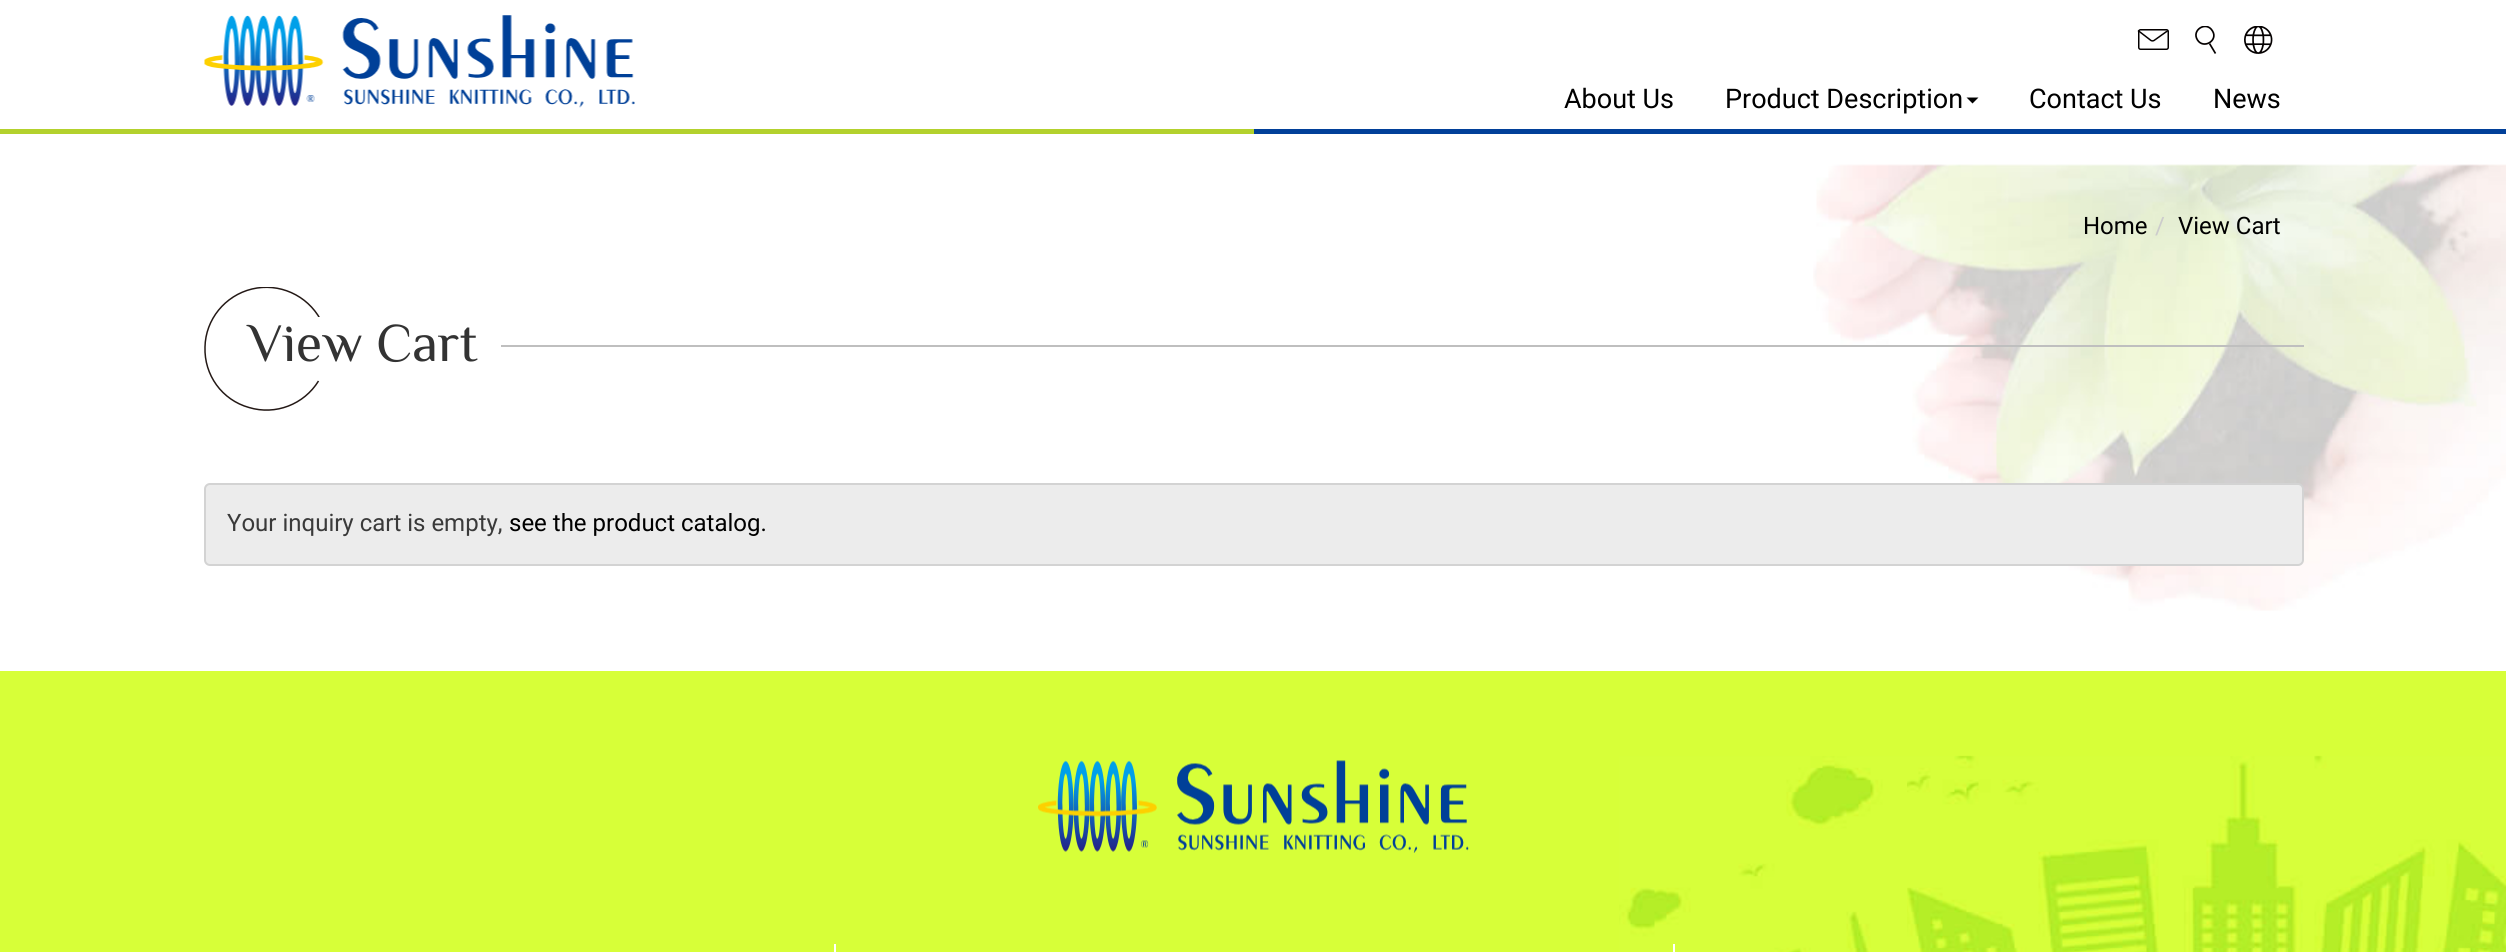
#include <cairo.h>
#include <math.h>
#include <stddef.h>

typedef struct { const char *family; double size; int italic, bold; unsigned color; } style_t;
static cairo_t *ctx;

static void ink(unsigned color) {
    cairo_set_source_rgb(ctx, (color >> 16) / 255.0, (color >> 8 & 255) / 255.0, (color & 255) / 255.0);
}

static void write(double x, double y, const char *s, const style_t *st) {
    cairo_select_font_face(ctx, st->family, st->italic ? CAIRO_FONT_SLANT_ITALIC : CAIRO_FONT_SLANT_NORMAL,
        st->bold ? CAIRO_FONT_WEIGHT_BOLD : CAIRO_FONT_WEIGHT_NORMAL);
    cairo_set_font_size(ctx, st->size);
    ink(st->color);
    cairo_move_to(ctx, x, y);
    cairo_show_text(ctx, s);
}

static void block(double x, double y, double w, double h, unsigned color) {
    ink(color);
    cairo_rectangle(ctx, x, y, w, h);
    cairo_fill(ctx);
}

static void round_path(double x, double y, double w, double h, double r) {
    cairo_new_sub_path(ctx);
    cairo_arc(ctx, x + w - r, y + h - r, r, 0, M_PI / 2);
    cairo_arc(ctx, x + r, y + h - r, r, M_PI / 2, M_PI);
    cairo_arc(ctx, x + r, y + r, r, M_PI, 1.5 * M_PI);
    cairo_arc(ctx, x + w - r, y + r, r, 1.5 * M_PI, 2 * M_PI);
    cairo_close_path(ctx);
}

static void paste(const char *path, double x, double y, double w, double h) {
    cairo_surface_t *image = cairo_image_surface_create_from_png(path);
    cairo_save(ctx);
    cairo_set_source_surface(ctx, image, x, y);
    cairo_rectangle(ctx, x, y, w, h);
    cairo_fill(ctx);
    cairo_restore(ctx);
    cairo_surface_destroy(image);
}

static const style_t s1 = {"Roboto", 27, 0, 0, 0x000000};
static const style_t s2 = {"Roboto", 24, 0, 0, 0x000000};
static const style_t s3 = {"Roboto", 24, 0, 0, 0xcccccc};
static const style_t s4 = {"Philosopher", 54, 0, 0, 0x333333};
static const style_t s5 = {"Roboto", 24, 0, 0, 0x3a3a3a};

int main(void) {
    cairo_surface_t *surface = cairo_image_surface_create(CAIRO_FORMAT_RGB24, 2506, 952);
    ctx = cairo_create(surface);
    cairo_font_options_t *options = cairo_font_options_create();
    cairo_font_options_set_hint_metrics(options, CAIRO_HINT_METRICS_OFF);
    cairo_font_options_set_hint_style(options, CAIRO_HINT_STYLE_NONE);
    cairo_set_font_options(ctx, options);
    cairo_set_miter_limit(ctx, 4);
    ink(0xffffff);
    cairo_paint(ctx);
    paste("pic1.png", 204, 15, 431, 93);
    round_path(2138.75, 29.75, 29.5, 19.5, 1.75);
    ink(0x040000);
    cairo_set_line_width(ctx, 1.5);
    cairo_stroke(ctx);
    cairo_new_path(ctx);
    cairo_move_to(ctx, 2138, 30.5);
    cairo_line_to(ctx, 2151, 40.5);
    cairo_curve_to(ctx, 2152, 41, 2153, 41, 2154, 40.5);
    cairo_line_to(ctx, 2168, 30.5);
    cairo_stroke(ctx);
    cairo_save(ctx);
    cairo_rectangle(ctx, 2190, 26, 32, 28);
    cairo_clip(ctx);
    cairo_new_path(ctx);
    cairo_move_to(ctx, 2212.5, 31);
    cairo_curve_to(ctx, 2218.5, 40.5, 2203.5, 49.5, 2197.5, 40);
    cairo_curve_to(ctx, 2191, 30, 2206.5, 20.5, 2212.5, 31);
    cairo_close_path(ctx);
    cairo_set_line_width(ctx, 1.7);
    cairo_stroke(ctx);
    cairo_restore(ctx);
    cairo_new_path(ctx);
    cairo_move_to(ctx, 2209.5, 43.5);
    cairo_line_to(ctx, 2215.5, 53.5);
    cairo_set_line_width(ctx, 1.7);
    cairo_stroke(ctx);
    paste("pic2.png", 2244, 26, 29, 28);
    write(1564, 108, "About Us", &s1);
    write(1725, 108, "Product Description", &s1);
    cairo_new_path(ctx);
    cairo_move_to(ctx, 1966.5, 97.5);
    cairo_line_to(ctx, 1978.5, 97.5);
    cairo_line_to(ctx, 1972.5, 103.5);
    cairo_close_path(ctx);
    cairo_fill(ctx);
    write(2029, 108, "Contact Us", &s1);
    write(2213, 108, "News", &s1);
    block(0, 129, 1254, 5, 0xb3d12d);
    block(1254, 129, 1252, 5, 0x014099);
    paste("pic3.png", 1813, 164, 693, 447);
    write(2083, 234, "Home", &s2);
    write(2155, 234, "/", &s3);
    write(2178, 234, "View Cart", &s2);
    cairo_save(ctx);
    cairo_rectangle(ctx, 204, 287, 117, 124);
    cairo_clip(ctx);
    cairo_new_path(ctx);
    cairo_move_to(ctx, 320.5, 319.5);
    cairo_curve_to(ctx, 307, 295, 279, 282.5, 252, 289);
    cairo_curve_to(ctx, 225, 295.5, 205.5, 319.5, 205, 347);
    cairo_curve_to(ctx, 204, 375, 222, 400, 249, 407.5);
    cairo_curve_to(ctx, 275.5, 415.5, 304, 404.5, 318.5, 381);
    ink(0x231815);
    cairo_set_line_width(ctx, 1.5);
    cairo_stroke(ctx);
    cairo_restore(ctx);
    block(318, 317, 3, 3, 0xffffff);
    write(248, 361, "View Cart", &s4);
    block(501, 345, 1803, 2, 0xbfbfbf);
    ink(0xececec);
    round_path(205, 484, 2098, 81, 5);
    cairo_fill_preserve(ctx);
    ink(0xd3d3d3);
    cairo_set_line_width(ctx, 2);
    cairo_stroke(ctx);
    write(227, 531, "Your inquiry cart is empty,", &s5);
    write(509, 531, "see the product catalog.", &s2);
    block(0, 671, 2506, 281, 0xd7ff38);
    paste("pic4.png", 1619, 755, 887, 197);
    paste("pic5.png", 1038, 760, 431, 93);
    block(1673, 944, 2, 8, 0xffffff);
    block(834, 944, 2, 8, 0xffffff);
    cairo_surface_write_to_png(surface, "screenshot.png");
    cairo_font_options_destroy(options);
    cairo_destroy(ctx);
    cairo_surface_destroy(surface);
    return 0;
}
